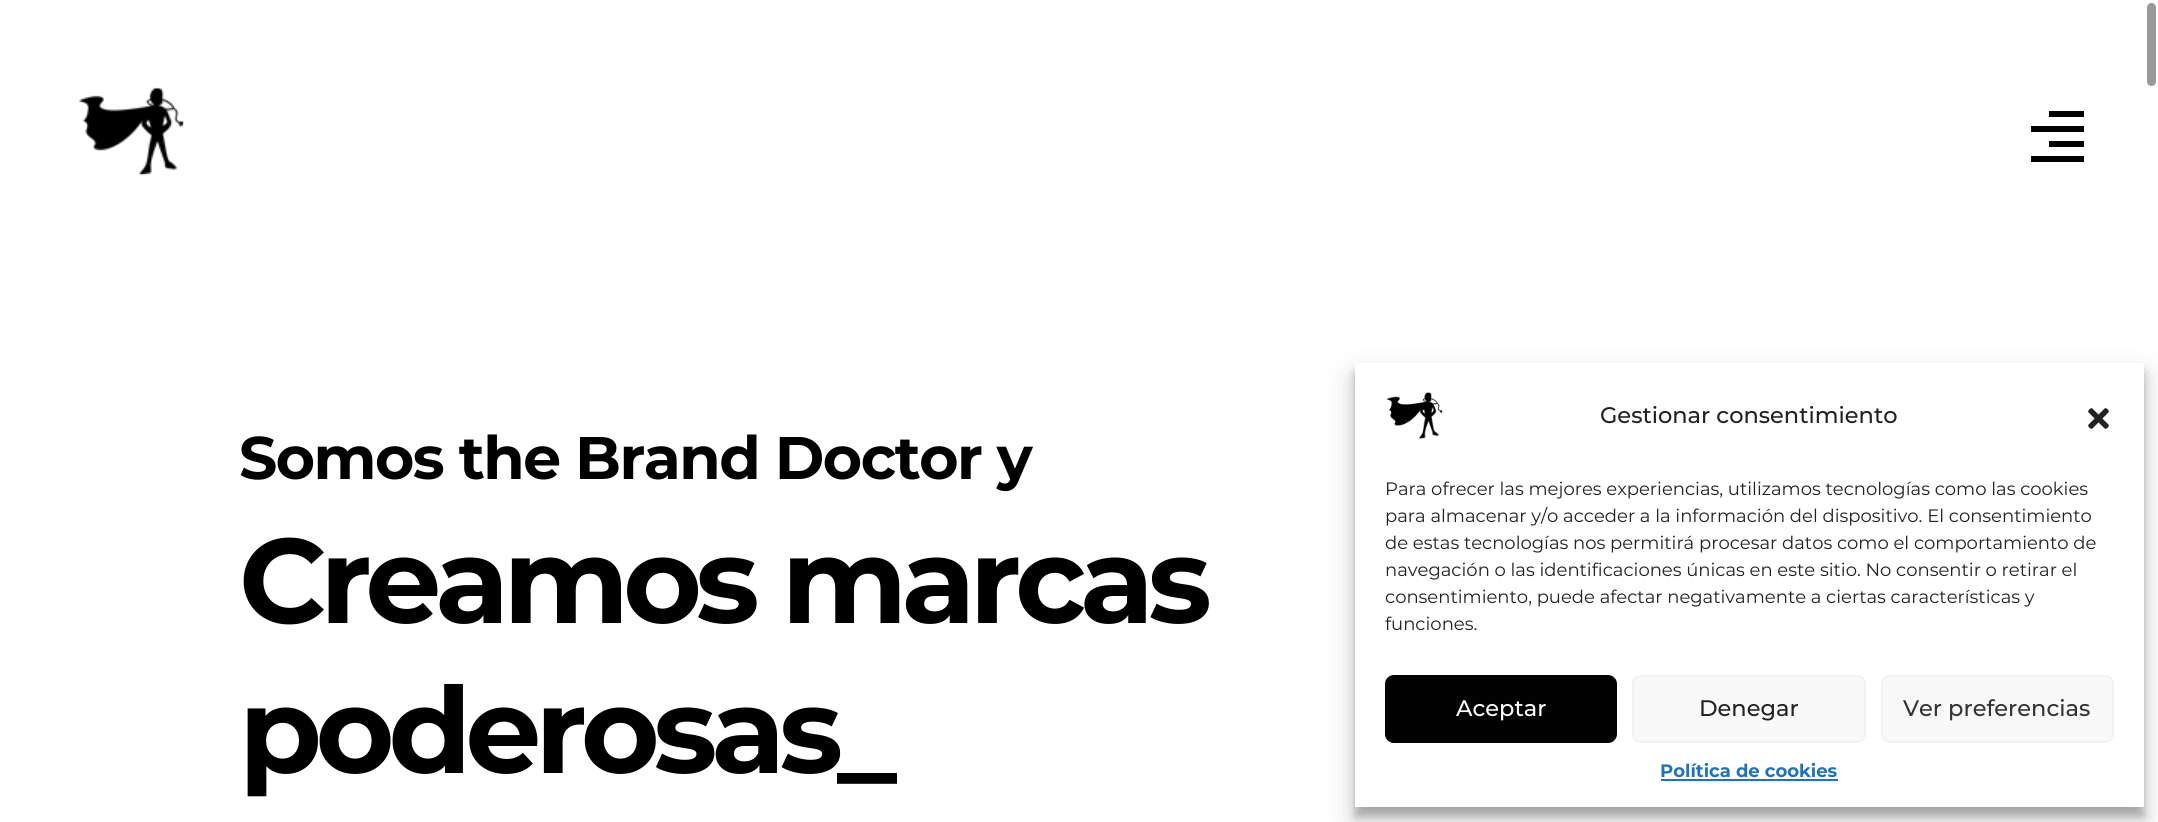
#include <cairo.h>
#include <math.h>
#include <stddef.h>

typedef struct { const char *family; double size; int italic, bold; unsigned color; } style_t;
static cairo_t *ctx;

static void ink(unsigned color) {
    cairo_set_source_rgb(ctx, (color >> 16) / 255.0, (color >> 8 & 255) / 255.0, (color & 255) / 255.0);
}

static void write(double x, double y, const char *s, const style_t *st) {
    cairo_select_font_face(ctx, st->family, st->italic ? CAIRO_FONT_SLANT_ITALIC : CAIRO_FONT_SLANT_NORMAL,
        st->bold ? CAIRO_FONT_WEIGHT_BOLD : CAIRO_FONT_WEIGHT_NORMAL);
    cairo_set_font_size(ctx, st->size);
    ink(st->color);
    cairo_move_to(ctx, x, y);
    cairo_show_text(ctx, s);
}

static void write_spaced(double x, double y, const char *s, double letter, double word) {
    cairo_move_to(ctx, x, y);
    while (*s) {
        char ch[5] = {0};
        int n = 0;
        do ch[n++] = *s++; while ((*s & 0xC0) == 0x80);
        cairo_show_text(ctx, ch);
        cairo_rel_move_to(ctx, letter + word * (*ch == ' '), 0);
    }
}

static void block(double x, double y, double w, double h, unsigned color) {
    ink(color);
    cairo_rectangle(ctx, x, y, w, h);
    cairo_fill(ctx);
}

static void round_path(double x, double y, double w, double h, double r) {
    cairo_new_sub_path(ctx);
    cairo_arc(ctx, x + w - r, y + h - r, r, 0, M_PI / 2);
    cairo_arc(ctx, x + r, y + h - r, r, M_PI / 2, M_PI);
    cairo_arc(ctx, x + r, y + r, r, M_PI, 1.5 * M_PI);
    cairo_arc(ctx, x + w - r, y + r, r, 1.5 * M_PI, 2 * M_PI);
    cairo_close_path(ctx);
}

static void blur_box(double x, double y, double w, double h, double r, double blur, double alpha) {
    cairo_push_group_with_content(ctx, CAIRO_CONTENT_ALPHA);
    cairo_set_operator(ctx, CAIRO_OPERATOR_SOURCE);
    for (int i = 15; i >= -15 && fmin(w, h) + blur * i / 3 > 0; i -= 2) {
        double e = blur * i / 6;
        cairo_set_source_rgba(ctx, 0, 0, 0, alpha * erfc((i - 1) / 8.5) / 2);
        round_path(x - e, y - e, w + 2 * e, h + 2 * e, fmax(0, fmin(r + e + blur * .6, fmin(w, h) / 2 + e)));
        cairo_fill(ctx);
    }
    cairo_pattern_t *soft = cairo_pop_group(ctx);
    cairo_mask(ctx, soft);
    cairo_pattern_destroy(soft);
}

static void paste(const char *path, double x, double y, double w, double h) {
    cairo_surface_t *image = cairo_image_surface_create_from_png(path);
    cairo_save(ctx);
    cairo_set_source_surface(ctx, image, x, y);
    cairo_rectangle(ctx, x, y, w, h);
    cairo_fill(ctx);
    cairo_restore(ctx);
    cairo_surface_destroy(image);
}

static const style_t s1 = {"Montserrat Medium", 22.5, 0, 0, 0x222222};
static const style_t s2 = {"Montserrat", 18, 0, 0, 0x222222};
static const style_t s3 = {"Montserrat Medium", 22.5, 0, 0, 0xffffff};
static const style_t s4 = {"Montserrat Medium", 22.5, 0, 0, 0x333333};
static const style_t s5 = {"Montserrat", 18, 0, 1, 0x1e73be};

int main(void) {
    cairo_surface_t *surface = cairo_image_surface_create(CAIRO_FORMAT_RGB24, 2158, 822);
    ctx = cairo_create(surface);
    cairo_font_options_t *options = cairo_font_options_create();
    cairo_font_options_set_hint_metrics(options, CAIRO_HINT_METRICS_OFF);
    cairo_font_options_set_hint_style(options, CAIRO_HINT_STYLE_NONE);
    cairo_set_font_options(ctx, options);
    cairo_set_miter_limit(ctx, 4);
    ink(0xffffff);
    cairo_paint(ctx);
    ink(0x999999);
    round_path(2147, 3, 9, 83, 4.5);
    cairo_fill(ctx);
    paste("pic1.png", 79, 87, 105, 89);
    block(2049, 111, 35, 6, 0x000000);
    block(2031, 126, 53, 6, 0x000000);
    block(2049, 141, 35, 6, 0x000000);
    block(2031, 156, 53, 6, 0x000000);
    cairo_select_font_face(ctx, "Montserrat", CAIRO_FONT_SLANT_NORMAL, CAIRO_FONT_WEIGHT_BOLD);
    cairo_set_font_size(ctx, 60);
    write_spaced(239, 479, "Somos the Brand Doctor y", -1.5, 0);
    cairo_set_font_size(ctx, 120);
    write_spaced(239, 623, "Creamos marcas", -6, 0);
    write_spaced(239, 773, "poderosas_", -6, 0);
    ink(0x000000);
    blur_box(1355, 372, 789, 444, 0, 4.5, 0.23);
    blur_box(1355, 378, 789, 444, 0, 15, 0.19);
    block(1355, 363, 789, 444, 0xffffff);
    paste("pic2.png", 1387, 392, 56, 47);
    write(1600, 423, "Gestionar consentimiento", &s1);
    paste("pic3.png", 2088, 408, 21, 21);
    write(1385, 495, "Para ofrecer las mejores experiencias, utilizamos tecnologías como las cookies", &s2);
    write(1385, 522, "para almacenar y/o acceder a la información del dispositivo. El consentimiento", &s2);
    write(1385, 549, "de estas tecnologías nos permitirá procesar datos como el comportamiento de", &s2);
    write(1385, 576, "navegación o las identificaciones únicas en este sitio. No consentir o retirar el", &s2);
    write(1385, 603, "consentimiento, puede afectar negativamente a ciertas características y", &s2);
    write(1385, 630, "funciones.", &s2);
    ink(0x020202);
    round_path(1386, 676, 230, 66, 8);
    cairo_fill_preserve(ctx);
    ink(0x000000);
    cairo_stroke(ctx);
    write(1456, 716, "Aceptar", &s3);
    ink(0xf9f9f9);
    round_path(1633, 676, 232, 66, 8);
    cairo_fill_preserve(ctx);
    ink(0xf2f2f2);
    cairo_stroke(ctx);
    write(1699, 716, "Denegar", &s1);
    ink(0xf9f9f9);
    round_path(1882, 676, 231, 66, 8);
    cairo_fill_preserve(ctx);
    ink(0xf2f2f2);
    cairo_stroke(ctx);
    write(1903, 716, "Ver preferencias", &s4);
    write(1660, 777, "Política de cookies", &s5);
    block(1661, 779, 177, 2, 0x1e73be);
    cairo_surface_write_to_png(surface, "screenshot.png");
    cairo_font_options_destroy(options);
    cairo_destroy(ctx);
    cairo_surface_destroy(surface);
    return 0;
}
